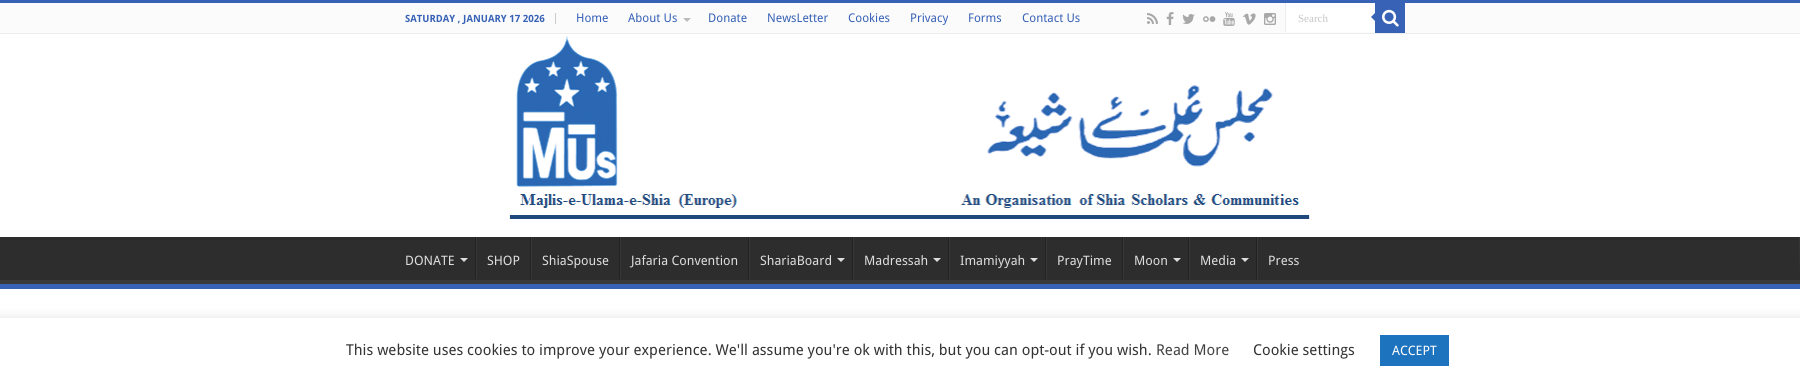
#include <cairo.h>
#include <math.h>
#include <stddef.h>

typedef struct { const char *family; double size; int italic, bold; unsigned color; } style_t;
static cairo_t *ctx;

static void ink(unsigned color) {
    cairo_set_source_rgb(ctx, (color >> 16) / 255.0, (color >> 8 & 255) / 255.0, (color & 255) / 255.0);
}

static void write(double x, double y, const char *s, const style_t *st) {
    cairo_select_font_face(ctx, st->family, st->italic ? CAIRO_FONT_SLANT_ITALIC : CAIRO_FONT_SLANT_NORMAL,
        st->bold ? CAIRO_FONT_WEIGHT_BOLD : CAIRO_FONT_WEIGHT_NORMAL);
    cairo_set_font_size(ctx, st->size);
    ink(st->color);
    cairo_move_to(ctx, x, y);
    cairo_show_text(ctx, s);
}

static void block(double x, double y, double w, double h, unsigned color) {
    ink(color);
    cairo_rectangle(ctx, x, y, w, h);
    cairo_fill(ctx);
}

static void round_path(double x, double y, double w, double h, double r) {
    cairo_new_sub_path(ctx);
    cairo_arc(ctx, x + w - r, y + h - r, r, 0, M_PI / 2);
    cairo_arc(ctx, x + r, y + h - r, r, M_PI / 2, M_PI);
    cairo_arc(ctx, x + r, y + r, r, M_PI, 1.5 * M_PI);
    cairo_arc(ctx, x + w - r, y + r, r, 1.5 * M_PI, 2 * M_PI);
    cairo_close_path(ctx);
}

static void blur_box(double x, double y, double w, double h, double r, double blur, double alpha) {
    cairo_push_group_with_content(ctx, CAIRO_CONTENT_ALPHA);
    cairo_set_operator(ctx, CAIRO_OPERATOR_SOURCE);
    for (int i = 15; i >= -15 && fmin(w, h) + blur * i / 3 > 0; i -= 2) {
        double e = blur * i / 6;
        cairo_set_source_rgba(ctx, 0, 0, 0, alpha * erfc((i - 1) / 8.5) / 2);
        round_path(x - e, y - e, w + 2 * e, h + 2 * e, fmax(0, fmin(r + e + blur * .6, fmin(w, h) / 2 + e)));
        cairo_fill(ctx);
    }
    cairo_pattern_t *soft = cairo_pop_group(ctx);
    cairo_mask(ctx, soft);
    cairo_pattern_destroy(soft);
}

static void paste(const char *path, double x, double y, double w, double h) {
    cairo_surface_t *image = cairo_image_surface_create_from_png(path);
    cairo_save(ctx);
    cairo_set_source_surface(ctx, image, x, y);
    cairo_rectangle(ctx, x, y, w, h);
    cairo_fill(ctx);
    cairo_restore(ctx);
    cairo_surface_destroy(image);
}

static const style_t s1 = {"Droid Sans", 10, 0, 1, 0x3862b6};
static const style_t s2 = {"Droid Sans", 12, 0, 0, 0x3862b6};
static const style_t s3 = {"Liberation Serif", 11, 0, 0, 0xc5c5c5};
static const style_t s4 = {"Droid Sans", 13, 0, 0, 0xdddddd};
static const style_t s5 = {"Droid Sans", 15, 0, 0, 0x333333};
static const style_t s6 = {"Droid Sans", 15, 0, 0, 0x444444};
static const style_t s7 = {"Droid Sans", 13, 0, 0, 0xffffff};

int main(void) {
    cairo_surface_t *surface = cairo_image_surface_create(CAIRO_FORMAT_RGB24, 1800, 383);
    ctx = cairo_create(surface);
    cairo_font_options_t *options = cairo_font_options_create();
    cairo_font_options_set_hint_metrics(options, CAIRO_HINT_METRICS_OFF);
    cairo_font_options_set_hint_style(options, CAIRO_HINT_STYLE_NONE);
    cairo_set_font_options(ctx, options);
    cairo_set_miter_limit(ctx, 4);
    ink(0xffffff);
    cairo_paint(ctx);
    block(0, 0, 1800, 3, 0x3862b6);
    block(0, 3, 1800, 30, 0xfbfbfb);
    block(0, 33, 1800, 1, 0xececec);
    block(555, 13, 1, 11, 0xcccccc);
    write(405, 22, "SATURDAY , JANUARY 17 2026", &s1);
    write(576, 22, "Home", &s2);
    write(628, 22, "About Us", &s2);
    ink(0xbbbbbb);
    cairo_new_path(ctx);
    cairo_move_to(ctx, 683, 18);
    cairo_line_to(ctx, 691, 18);
    cairo_line_to(ctx, 687, 22);
    cairo_close_path(ctx);
    cairo_fill(ctx);
    write(708, 22, "Donate", &s2);
    write(767, 22, "NewsLetter", &s2);
    write(848, 22, "Cookies", &s2);
    write(910, 22, "Privacy", &s2);
    write(968, 22, "Forms", &s2);
    write(1022, 22, "Contact Us", &s2);
    paste("pic1.png", 1147, 13, 11, 11);
    paste("pic2.png", 1166, 12, 8, 13);
    paste("pic3.png", 1182, 14, 13, 10);
    paste("pic4.png", 1203, 16, 13, 6);
    paste("pic5.png", 1223, 12, 12, 14);
    paste("pic6.png", 1243, 13, 13, 12);
    paste("pic7.png", 1264, 13, 12, 12);
    block(1286, 3, 89, 29, 0xffffff);
    block(1285, 3, 1, 29, 0xececec);
    write(1298, 22, "Search", &s3);
    block(1375, 3, 30, 30, 0x3862b6);
    paste("pic8.png", 1382, 9, 17, 18);
    cairo_new_path(ctx);
    cairo_move_to(ctx, 1375, 13);
    cairo_line_to(ctx, 1375, 21);
    cairo_line_to(ctx, 1371, 17);
    cairo_close_path(ctx);
    cairo_fill(ctx);
    paste("pic9.png", 509, 36, 801, 183);
    block(0, 237, 1800, 43, 0x2d2d2d);
    cairo_save(ctx);
    cairo_rectangle(ctx, 0, 237, 1800, 47);
    cairo_clip(ctx);
    ink(0x393939);
    cairo_set_fill_rule(ctx, CAIRO_FILL_RULE_EVEN_ODD);
    cairo_new_path(ctx);
    cairo_move_to(ctx, -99, 138);
    cairo_line_to(ctx, 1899, 138);
    cairo_line_to(ctx, 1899, 383);
    cairo_line_to(ctx, -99, 383);
    cairo_close_path(ctx);
    cairo_move_to(ctx, -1, 231);
    cairo_line_to(ctx, 1799, 231);
    cairo_line_to(ctx, 1800, 280);
    cairo_line_to(ctx, -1, 280);
    cairo_line_to(ctx, -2, 279);
    cairo_line_to(ctx, -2, 231);
    cairo_close_path(ctx);
    cairo_fill(ctx);
    cairo_restore(ctx);
    block(0, 284, 1800, 5, 0x3862b6);
    write(405, 265, "DONATE", &s4);
    cairo_new_path(ctx);
    cairo_move_to(ctx, 460, 258);
    cairo_line_to(ctx, 468, 258);
    cairo_line_to(ctx, 464, 262);
    cairo_close_path(ctx);
    cairo_fill(ctx);
    block(475, 237, 1, 42, 0x222222);
    block(476, 237, 1, 42, 0x383838);
    write(487, 265, "SHOP", &s4);
    block(530, 237, 1, 42, 0x222222);
    block(531, 237, 1, 42, 0x383838);
    write(542, 265, "ShiaSpouse", &s4);
    block(619, 237, 1, 42, 0x222222);
    block(620, 237, 1, 42, 0x383838);
    write(631, 265, "Jafaria Convention", &s4);
    block(748, 237, 1, 42, 0x222222);
    block(749, 237, 1, 42, 0x383838);
    write(760, 265, "ShariaBoard", &s4);
    cairo_new_path(ctx);
    cairo_move_to(ctx, 837, 258);
    cairo_line_to(ctx, 845, 258);
    cairo_line_to(ctx, 841, 262);
    cairo_close_path(ctx);
    cairo_fill(ctx);
    block(852, 237, 1, 42, 0x222222);
    block(853, 237, 1, 42, 0x383838);
    write(864, 265, "Madressah", &s4);
    cairo_new_path(ctx);
    cairo_move_to(ctx, 933, 258);
    cairo_line_to(ctx, 941, 258);
    cairo_line_to(ctx, 937, 262);
    cairo_close_path(ctx);
    cairo_fill(ctx);
    block(948, 237, 1, 42, 0x222222);
    block(949, 237, 1, 42, 0x383838);
    write(960, 265, "Imamiyyah", &s4);
    cairo_new_path(ctx);
    cairo_move_to(ctx, 1030, 258);
    cairo_line_to(ctx, 1038, 258);
    cairo_line_to(ctx, 1034, 262);
    cairo_close_path(ctx);
    cairo_fill(ctx);
    block(1045, 237, 1, 42, 0x222222);
    block(1046, 237, 1, 42, 0x383838);
    write(1057, 265, "PrayTime", &s4);
    block(1122, 237, 1, 42, 0x222222);
    block(1123, 237, 1, 42, 0x383838);
    write(1134, 265, "Moon", &s4);
    cairo_new_path(ctx);
    cairo_move_to(ctx, 1173, 258);
    cairo_line_to(ctx, 1181, 258);
    cairo_line_to(ctx, 1177, 262);
    cairo_close_path(ctx);
    cairo_fill(ctx);
    block(1188, 237, 1, 42, 0x222222);
    block(1189, 237, 1, 42, 0x383838);
    write(1200, 265, "Media", &s4);
    cairo_new_path(ctx);
    cairo_move_to(ctx, 1241, 258);
    cairo_line_to(ctx, 1249, 258);
    cairo_line_to(ctx, 1245, 262);
    cairo_close_path(ctx);
    cairo_fill(ctx);
    block(1256, 237, 1, 42, 0x222222);
    block(1257, 237, 1, 42, 0x383838);
    write(1268, 265, "Press", &s4);
    ink(0xacabab);
    blur_box(0, 317, 1800, 65, 0, 5, 0.3);
    block(0, 318, 1800, 65, 0xffffff);
    write(346, 355, "This website uses cookies to improve your experience. We'll assume you're ok with this, but you can opt-out if you wish.", &s5);
    write(1156, 355, "Read More", &s6);
    write(1253, 355, "Cookie settings", &s5);
    block(1380, 335, 69, 31, 0x1e73be);
    write(1392, 355, "ACCEPT", &s7);
    cairo_surface_write_to_png(surface, "screenshot.png");
    cairo_font_options_destroy(options);
    cairo_destroy(ctx);
    cairo_surface_destroy(surface);
    return 0;
}
